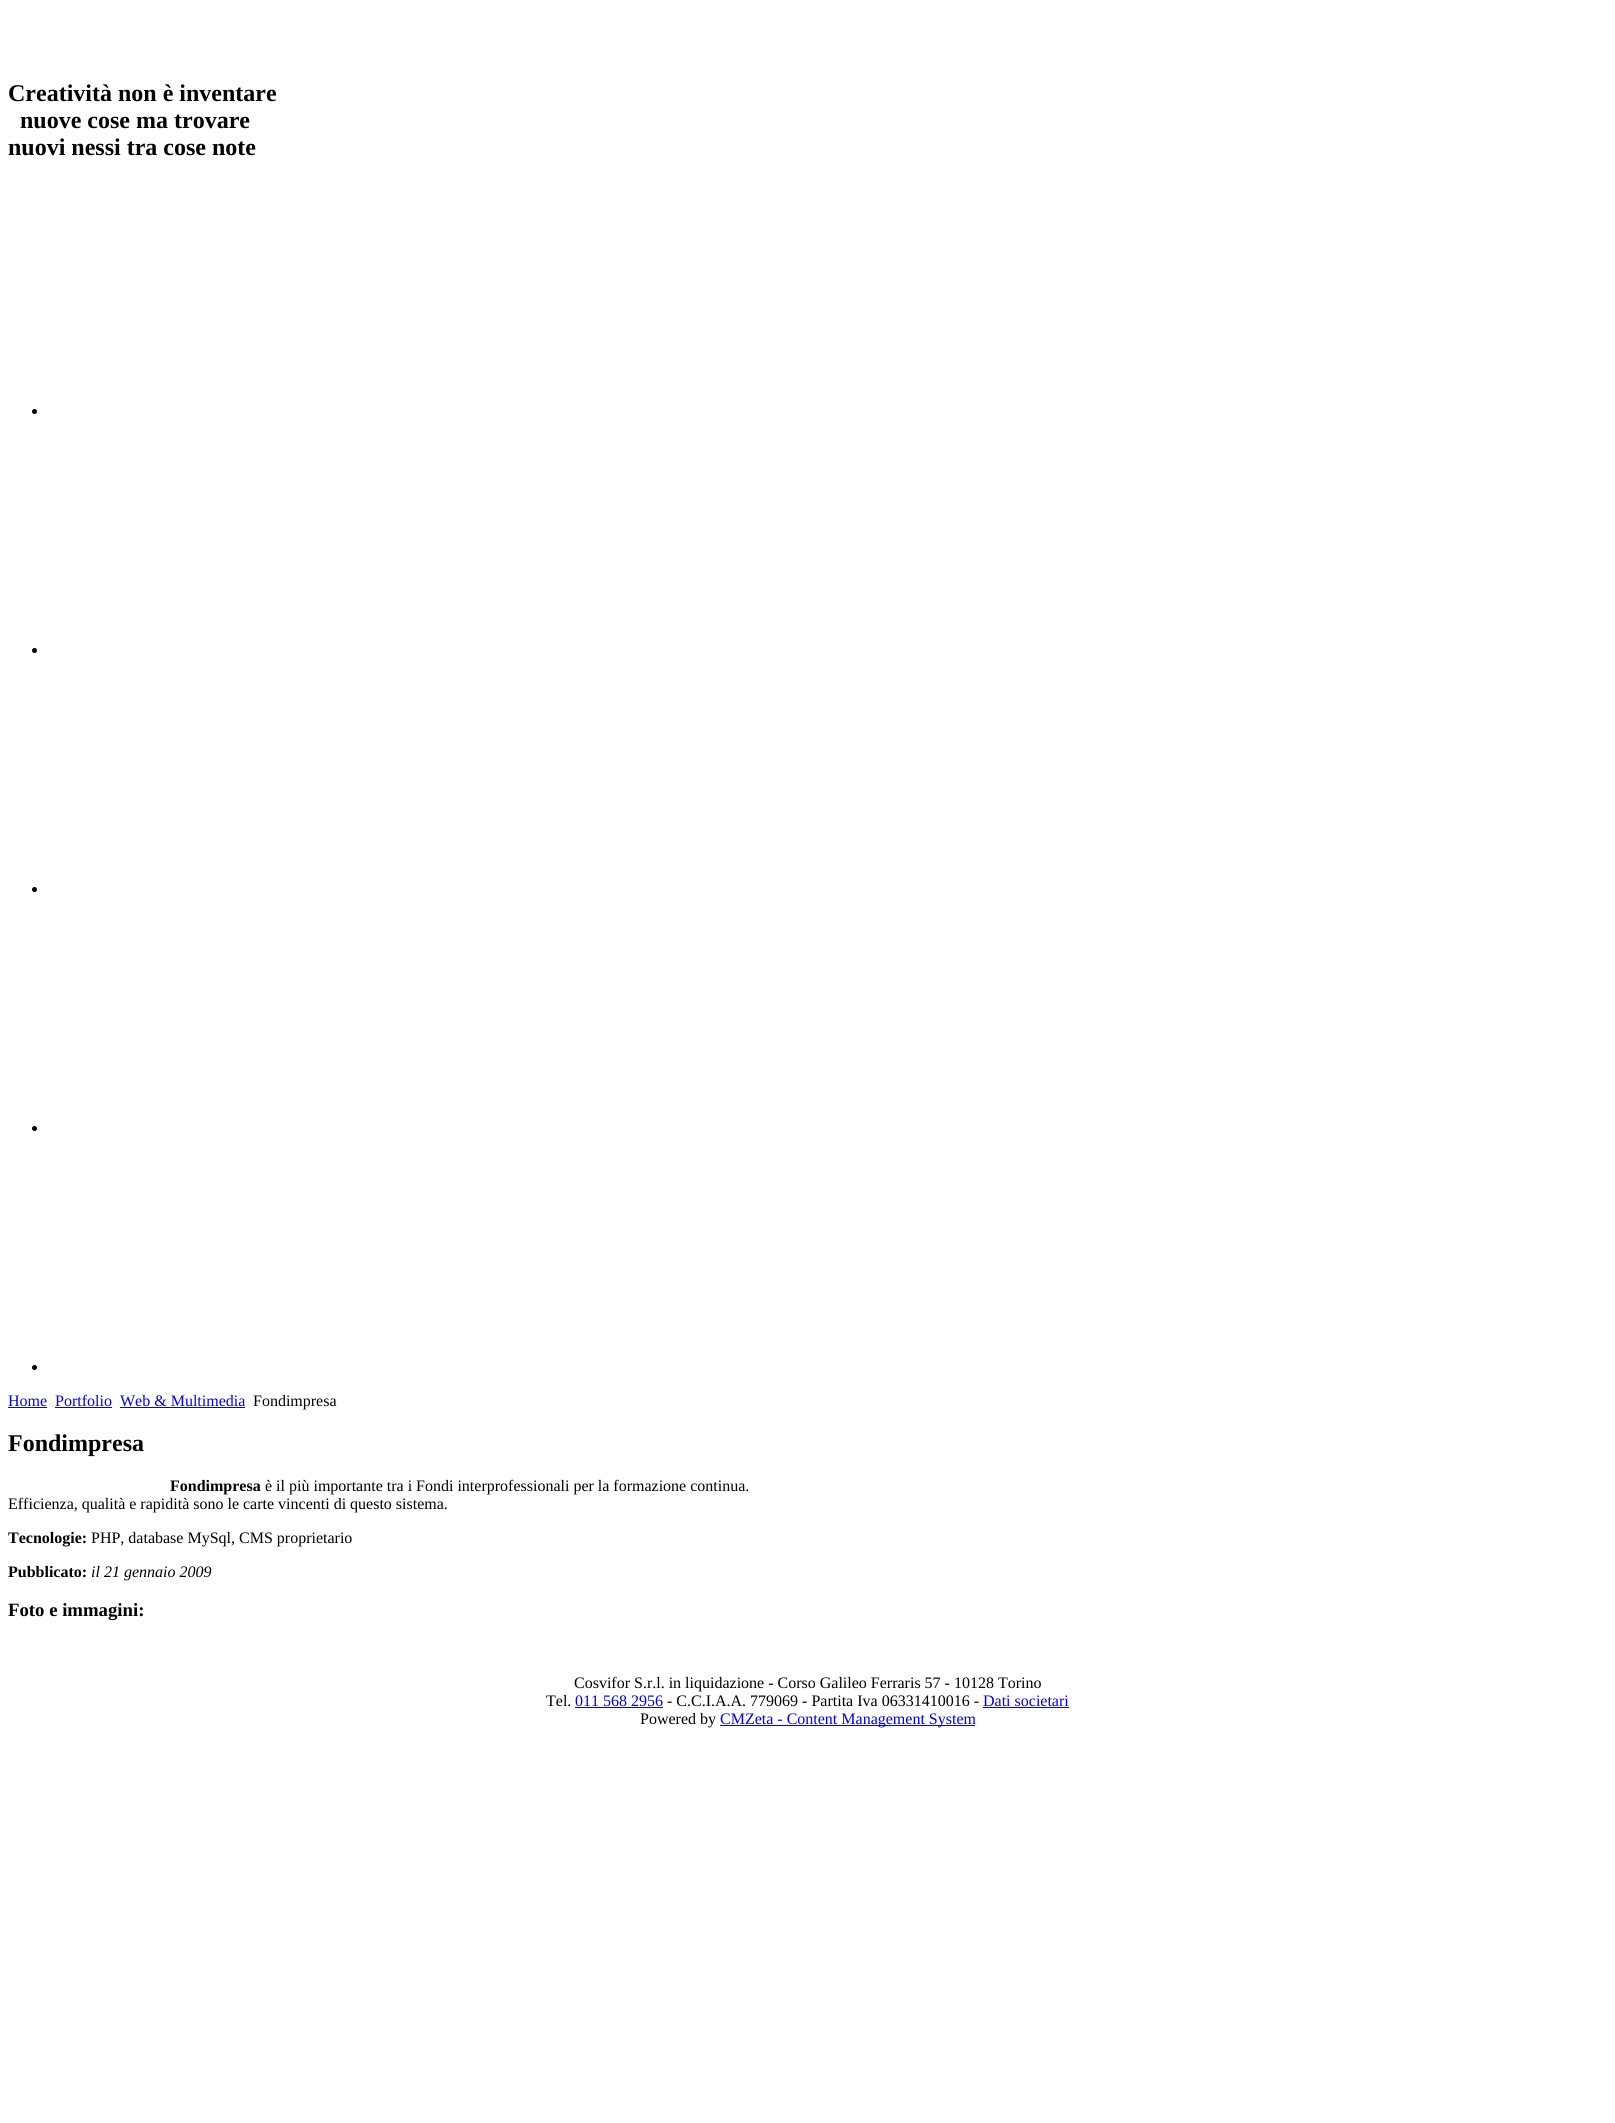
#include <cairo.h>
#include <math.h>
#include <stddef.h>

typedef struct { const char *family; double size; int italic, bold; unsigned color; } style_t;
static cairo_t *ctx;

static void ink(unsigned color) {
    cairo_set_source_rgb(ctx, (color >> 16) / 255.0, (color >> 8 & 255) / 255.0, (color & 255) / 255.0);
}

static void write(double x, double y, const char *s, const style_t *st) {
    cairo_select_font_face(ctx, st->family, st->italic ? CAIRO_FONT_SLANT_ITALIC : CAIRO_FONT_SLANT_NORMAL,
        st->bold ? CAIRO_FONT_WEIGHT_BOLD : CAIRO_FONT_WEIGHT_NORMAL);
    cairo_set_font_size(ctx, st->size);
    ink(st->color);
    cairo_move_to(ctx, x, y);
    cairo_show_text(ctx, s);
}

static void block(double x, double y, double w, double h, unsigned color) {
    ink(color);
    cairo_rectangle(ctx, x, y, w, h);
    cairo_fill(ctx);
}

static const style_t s1 = {"Liberation Serif", 24, 0, 1, 0x000000};
static const style_t s2 = {"Liberation Serif", 16, 0, 0, 0x0000ee};
static const style_t s3 = {"Liberation Serif", 16, 0, 0, 0x000000};
static const style_t s4 = {"Liberation Serif", 16, 0, 1, 0x000000};
static const style_t s5 = {"Liberation Serif", 16, 1, 0, 0x000000};
static const style_t s6 = {"Liberation Serif", 18.75, 0, 1, 0x000000};

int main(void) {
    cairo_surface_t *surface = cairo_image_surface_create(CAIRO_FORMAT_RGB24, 1615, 2123);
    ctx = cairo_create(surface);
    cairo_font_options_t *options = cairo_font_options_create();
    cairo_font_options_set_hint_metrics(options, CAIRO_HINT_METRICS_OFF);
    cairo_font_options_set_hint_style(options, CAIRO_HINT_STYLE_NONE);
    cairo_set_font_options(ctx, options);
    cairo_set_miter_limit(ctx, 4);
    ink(0xffffff);
    cairo_paint(ctx);
    write(8, 101, "Creatività non è inventare", &s1);
    write(20, 128, "nuove cose ma trovare", &s1);
    write(8, 155, "nuovi nessi tra cose note", &s1);
    cairo_new_path(ctx);
    cairo_arc(ctx, 34.5, 411.5, 2.5, 0, 2 * M_PI);
    cairo_fill(ctx);
    cairo_arc(ctx, 34.5, 650.5, 2.5, 0, 2 * M_PI);
    cairo_fill(ctx);
    cairo_arc(ctx, 34.5, 889.5, 2.5, 0, 2 * M_PI);
    cairo_fill(ctx);
    cairo_arc(ctx, 34.5, 1128.5, 2.5, 0, 2 * M_PI);
    cairo_fill(ctx);
    cairo_arc(ctx, 34.5, 1367.5, 2.5, 0, 2 * M_PI);
    cairo_fill(ctx);
    write(8, 1406, "Home", &s2);
    block(8, 1407, 39, 1, 0x0000ee);
    write(55, 1406, "Portfolio", &s2);
    block(55, 1407, 57, 1, 0x0000ee);
    write(120, 1406, "Web & Multimedia", &s2);
    block(120, 1407, 125, 1, 0x0000ee);
    write(253, 1406, "Fondimpresa", &s3);
    write(8, 1451, "Fondimpresa", &s1);
    write(170, 1491, "Fondimpresa", &s4);
    write(265, 1491, "è il più importante tra i Fondi interprofessionali per la formazione continua.", &s3);
    write(8, 1509, "Efficienza, qualità e rapidità sono le carte vincenti di questo sistema.", &s3);
    write(8, 1543, "Tecnologie:", &s4);
    write(91, 1543, "PHP, database MySql, CMS proprietario", &s3);
    write(8, 1577, "Pubblicato:", &s4);
    write(91, 1577, "il 21 gennaio 2009", &s5);
    write(8, 1616, "Foto e immagini:", &s6);
    write(574, 1688, "Cosvifor S.r.l. in liquidazione - Corso Galileo Ferraris 57 - 10128 Torino", &s3);
    write(546, 1706, "Tel.", &s3);
    write(575, 1706, "011 568 2956", &s2);
    block(575, 1707, 88, 1, 0x0000ee);
    write(667, 1706, "- C.C.I.A.A. 779069 - Partita Iva 06331410016 -", &s3);
    write(983, 1706, "Dati societari", &s2);
    block(983, 1707, 86, 1, 0x0000ee);
    write(640, 1724, "Powered by", &s3);
    block(720, 1725, 255, 1, 0x0000ee);
    write(720, 1724, "CMZeta - Content Management System", &s2);
    cairo_surface_write_to_png(surface, "screenshot.png");
    cairo_font_options_destroy(options);
    cairo_destroy(ctx);
    cairo_surface_destroy(surface);
    return 0;
}
